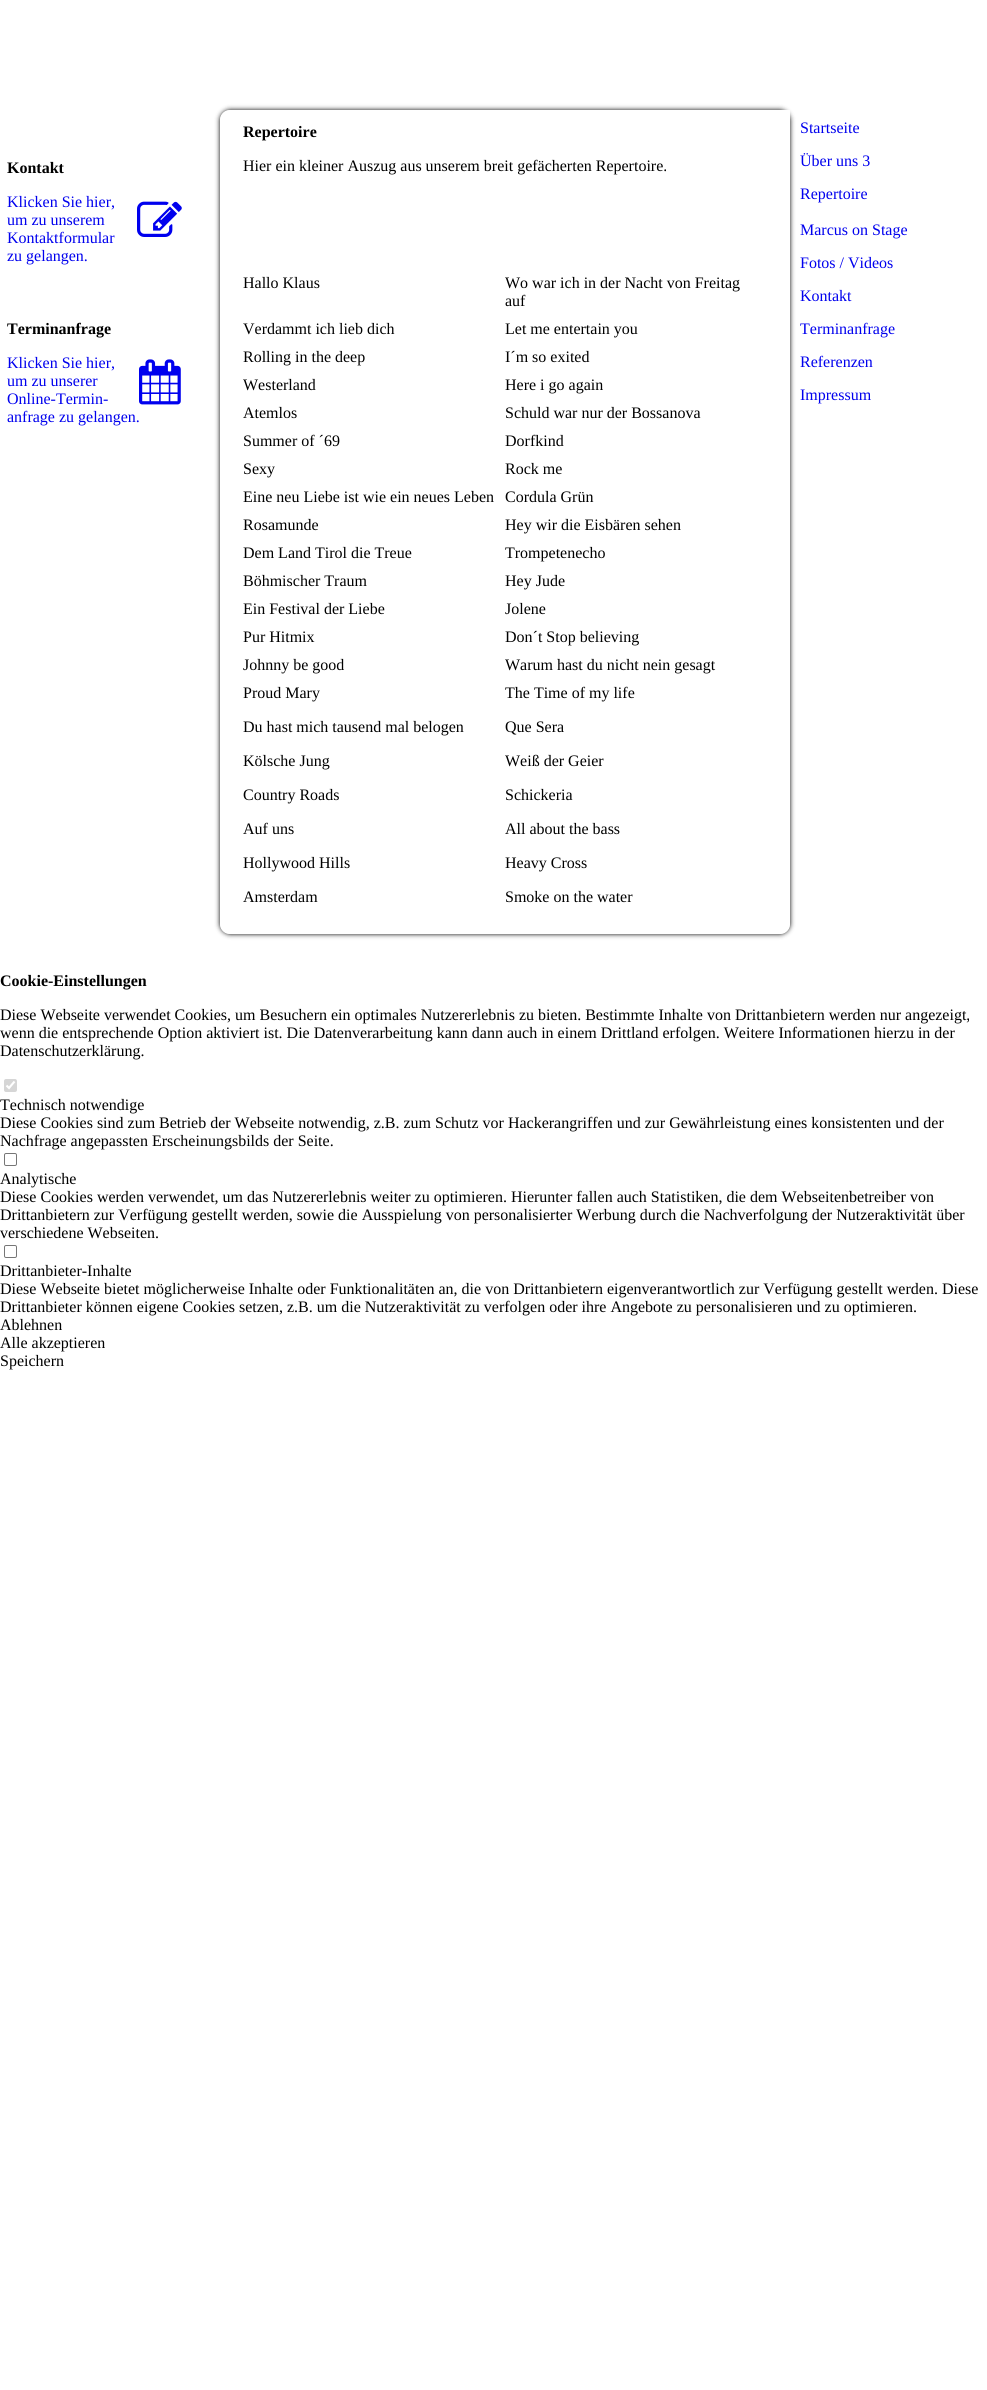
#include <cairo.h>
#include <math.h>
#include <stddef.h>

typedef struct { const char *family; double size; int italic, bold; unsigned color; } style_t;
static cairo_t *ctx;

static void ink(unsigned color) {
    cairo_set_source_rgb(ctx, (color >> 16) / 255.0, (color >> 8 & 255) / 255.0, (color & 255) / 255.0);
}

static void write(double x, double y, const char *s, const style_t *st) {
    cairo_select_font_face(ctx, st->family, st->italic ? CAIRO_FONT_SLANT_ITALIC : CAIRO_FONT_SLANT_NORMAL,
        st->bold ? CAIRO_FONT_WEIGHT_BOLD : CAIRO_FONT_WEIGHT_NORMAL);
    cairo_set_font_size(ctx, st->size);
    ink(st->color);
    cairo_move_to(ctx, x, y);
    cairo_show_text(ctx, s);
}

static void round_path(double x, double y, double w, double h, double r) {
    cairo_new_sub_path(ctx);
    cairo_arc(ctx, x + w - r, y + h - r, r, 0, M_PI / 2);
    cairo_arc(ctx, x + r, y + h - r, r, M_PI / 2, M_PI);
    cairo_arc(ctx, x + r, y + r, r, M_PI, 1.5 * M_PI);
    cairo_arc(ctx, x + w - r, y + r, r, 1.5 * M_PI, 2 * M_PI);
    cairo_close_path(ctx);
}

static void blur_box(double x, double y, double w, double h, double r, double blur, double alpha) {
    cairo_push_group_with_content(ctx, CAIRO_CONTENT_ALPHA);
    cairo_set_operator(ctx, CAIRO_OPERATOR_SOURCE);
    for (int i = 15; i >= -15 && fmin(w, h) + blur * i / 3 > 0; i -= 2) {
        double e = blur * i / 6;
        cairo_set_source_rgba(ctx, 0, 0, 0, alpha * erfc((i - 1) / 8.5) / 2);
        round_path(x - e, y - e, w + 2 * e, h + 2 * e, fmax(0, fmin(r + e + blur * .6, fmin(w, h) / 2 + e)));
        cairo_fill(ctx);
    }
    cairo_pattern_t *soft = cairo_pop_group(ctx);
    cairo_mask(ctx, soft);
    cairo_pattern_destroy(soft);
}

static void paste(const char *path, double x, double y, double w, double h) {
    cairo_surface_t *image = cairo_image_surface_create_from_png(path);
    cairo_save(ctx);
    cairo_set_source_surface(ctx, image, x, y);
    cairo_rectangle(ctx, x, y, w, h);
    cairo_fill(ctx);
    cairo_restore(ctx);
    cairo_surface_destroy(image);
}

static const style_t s1 = {"Liberation Serif", 16, 0, 1, 0x000000};
static const style_t s2 = {"Liberation Serif", 16, 0, 0, 0x0000ee};
static const style_t s3 = {"Liberation Serif", 16, 0, 0, 0x000000};

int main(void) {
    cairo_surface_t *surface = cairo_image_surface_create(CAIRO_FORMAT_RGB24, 987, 2390);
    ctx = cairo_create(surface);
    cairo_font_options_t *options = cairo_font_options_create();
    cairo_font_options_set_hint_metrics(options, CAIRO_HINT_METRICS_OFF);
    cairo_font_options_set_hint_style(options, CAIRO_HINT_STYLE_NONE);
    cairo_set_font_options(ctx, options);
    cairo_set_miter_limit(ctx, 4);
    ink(0xffffff);
    cairo_paint(ctx);
    write(7, 173, "Kontakt", &s1);
    write(7, 207, "Klicken Sie hier,", &s2);
    write(7, 225, "um zu unserem", &s2);
    write(7, 243, "Kontaktformular", &s2);
    write(7, 261, "zu gelangen.", &s2);
    paste("pic1.png", 137, 201, 45, 36);
    write(7, 334, "Terminanfrage", &s1);
    write(7, 368, "Klicken Sie hier,", &s2);
    write(7, 386, "um zu unserer", &s2);
    write(7, 404, "Online-Termin-", &s2);
    write(7, 422, "anfrage zu gelangen.", &s2);
    paste("pic2.png", 139, 359, 42, 46);
    cairo_save(ctx);
    cairo_set_fill_rule(ctx, CAIRO_FILL_RULE_EVEN_ODD);
    cairo_new_path(ctx);
    cairo_move_to(ctx, 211, 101);
    cairo_line_to(ctx, 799, 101);
    cairo_line_to(ctx, 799, 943);
    cairo_line_to(ctx, 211, 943);
    cairo_close_path(ctx);
    cairo_move_to(ctx, 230, 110);
    cairo_line_to(ctx, 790, 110);
    cairo_line_to(ctx, 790, 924);
    cairo_curve_to(ctx, 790, 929.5, 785.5, 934, 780, 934);
    cairo_line_to(ctx, 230, 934);
    cairo_curve_to(ctx, 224.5, 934, 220, 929.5, 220, 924);
    cairo_line_to(ctx, 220, 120);
    cairo_curve_to(ctx, 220, 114.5, 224.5, 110, 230, 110);
    cairo_close_path(ctx);
    cairo_clip(ctx);
    ink(0x000000);
    blur_box(220, 110, 570, 824, 10, 2.5, 1);
    cairo_restore(ctx);
    write(243, 137, "Repertoire", &s1);
    write(243, 171, "Hier ein kleiner Auszug aus unserem breit gefächerten Repertoire.", &s3);
    write(243, 288, "Hallo Klaus", &s3);
    write(505, 288, "Wo war ich in der Nacht von Freitag", &s3);
    write(505, 306, "auf", &s3);
    write(243, 334, "Verdammt ich lieb dich", &s3);
    write(505, 334, "Let me entertain you", &s3);
    write(243, 362, "Rolling in the deep", &s3);
    write(505, 362, "I´m so exited", &s3);
    write(243, 390, "Westerland", &s3);
    write(505, 390, "Here i go again", &s3);
    write(243, 418, "Atemlos", &s3);
    write(505, 418, "Schuld war nur der Bossanova", &s3);
    write(243, 446, "Summer of ´69", &s3);
    write(505, 446, "Dorfkind", &s3);
    write(243, 474, "Sexy", &s3);
    write(505, 474, "Rock me", &s3);
    write(243, 502, "Eine neu Liebe ist wie ein neues Leben", &s3);
    write(505, 502, "Cordula Grün", &s3);
    write(243, 530, "Rosamunde", &s3);
    write(505, 530, "Hey wir die Eisbären sehen", &s3);
    write(243, 558, "Dem Land Tirol die Treue", &s3);
    write(505, 558, "Trompetenecho", &s3);
    write(243, 586, "Böhmischer Traum", &s3);
    write(505, 586, "Hey Jude", &s3);
    write(243, 614, "Ein Festival der Liebe", &s3);
    write(505, 614, "Jolene", &s3);
    write(243, 642, "Pur Hitmix", &s3);
    write(505, 642, "Don´t Stop believing", &s3);
    write(243, 670, "Johnny be good", &s3);
    write(505, 670, "Warum hast du nicht nein gesagt", &s3);
    write(243, 698, "Proud Mary", &s3);
    write(243, 732, "Du hast mich tausend mal belogen", &s3);
    write(243, 766, "Kölsche Jung", &s3);
    write(243, 800, "Country Roads", &s3);
    write(243, 834, "Auf uns", &s3);
    write(243, 868, "Hollywood Hills", &s3);
    write(243, 902, "Amsterdam", &s3);
    write(505, 698, "The Time of my life", &s3);
    write(505, 732, "Que Sera", &s3);
    write(505, 766, "Weiß der Geier", &s3);
    write(505, 800, "Schickeria", &s3);
    write(505, 834, "All about the bass", &s3);
    write(505, 868, "Heavy Cross", &s3);
    write(505, 902, "Smoke on the water", &s3);
    write(800, 133, "Startseite", &s2);
    write(800, 166, "Über uns 3", &s2);
    write(800, 199, "Repertoire", &s2);
    write(800, 235, "Marcus on Stage", &s2);
    write(800, 268, "Fotos / Videos", &s2);
    write(800, 301, "Kontakt", &s2);
    write(800, 334, "Terminanfrage", &s2);
    write(800, 367, "Referenzen", &s2);
    write(800, 400, "Impressum", &s2);
    write(0, 986, "Cookie-Einstellungen", &s1);
    write(0, 1020, "Diese Webseite verwendet Cookies, um Besuchern ein optimales Nutzererlebnis zu bieten. Bestimmte Inhalte von Drittanbietern werden nur angezeigt,", &s3);
    write(0, 1038, "wenn die entsprechende Option aktiviert ist. Die Datenverarbeitung kann dann auch in einem Drittland erfolgen. Weitere Informationen hierzu in der", &s3);
    write(0, 1056, "Datenschutzerklärung.", &s3);
    ink(0xd6d6d6);
    round_path(4, 1079, 13, 13, 2);
    cairo_fill(ctx);
    cairo_new_path(ctx);
    cairo_move_to(ctx, 6.5, 1085.5);
    cairo_line_to(ctx, 9, 1088);
    cairo_line_to(ctx, 14.5, 1081.5);
    ink(0xffffff);
    cairo_set_line_width(ctx, 2.1);
    cairo_stroke(ctx);
    write(0, 1110, "Technisch notwendige", &s3);
    write(0, 1128, "Diese Cookies sind zum Betrieb der Webseite notwendig, z.B. zum Schutz vor Hackerangriffen und zur Gewährleistung eines konsistenten und der", &s3);
    write(0, 1146, "Nachfrage angepassten Erscheinungsbilds der Seite.", &s3);
    round_path(4.5, 1153.5, 12, 12, 1.5);
    ink(0x767676);
    cairo_set_line_width(ctx, 1);
    cairo_stroke(ctx);
    write(0, 1184, "Analytische", &s3);
    write(0, 1202, "Diese Cookies werden verwendet, um das Nutzererlebnis weiter zu optimieren. Hierunter fallen auch Statistiken, die dem Webseitenbetreiber von", &s3);
    write(0, 1220, "Drittanbietern zur Verfügung gestellt werden, sowie die Ausspielung von personalisierter Werbung durch die Nachverfolgung der Nutzeraktivität über", &s3);
    write(0, 1238, "verschiedene Webseiten.", &s3);
    round_path(4.5, 1245.5, 12, 12, 1.5);
    ink(0x767676);
    cairo_stroke(ctx);
    write(0, 1276, "Drittanbieter-Inhalte", &s3);
    write(0, 1294, "Diese Webseite bietet möglicherweise Inhalte oder Funktionalitäten an, die von Drittanbietern eigenverantwortlich zur Verfügung gestellt werden. Diese", &s3);
    write(0, 1312, "Drittanbieter können eigene Cookies setzen, z.B. um die Nutzeraktivität zu verfolgen oder ihre Angebote zu personalisieren und zu optimieren.", &s3);
    write(0, 1330, "Ablehnen", &s3);
    write(0, 1348, "Alle akzeptieren", &s3);
    write(0, 1366, "Speichern", &s3);
    cairo_surface_write_to_png(surface, "screenshot.png");
    cairo_font_options_destroy(options);
    cairo_destroy(ctx);
    cairo_surface_destroy(surface);
    return 0;
}
